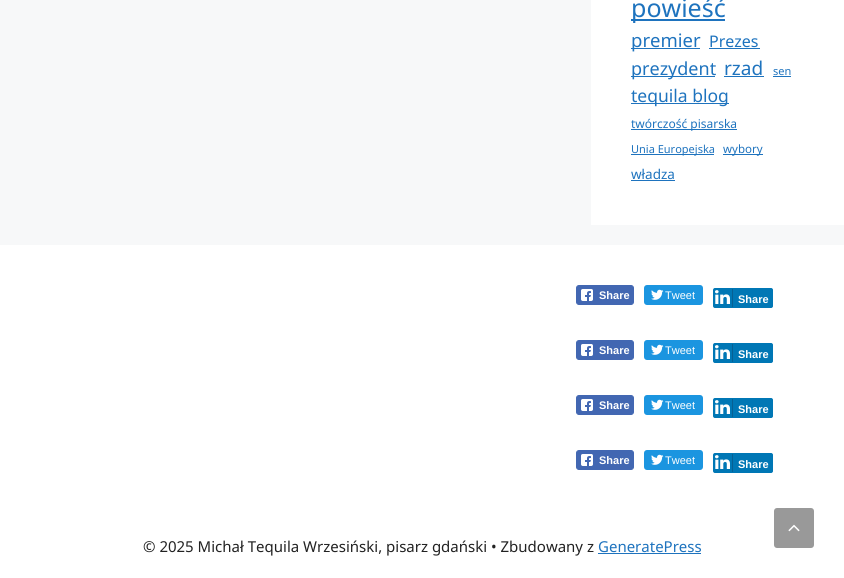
#include <cairo.h>
#include <math.h>
#include <stddef.h>

typedef struct { const char *family; double size; int italic, bold; unsigned color; } style_t;
static cairo_t *ctx;

static void ink(unsigned color) {
    cairo_set_source_rgb(ctx, (color >> 16) / 255.0, (color >> 8 & 255) / 255.0, (color & 255) / 255.0);
}

static void write(double x, double y, const char *s, const style_t *st) {
    cairo_select_font_face(ctx, st->family, st->italic ? CAIRO_FONT_SLANT_ITALIC : CAIRO_FONT_SLANT_NORMAL,
        st->bold ? CAIRO_FONT_WEIGHT_BOLD : CAIRO_FONT_WEIGHT_NORMAL);
    cairo_set_font_size(ctx, st->size);
    ink(st->color);
    cairo_move_to(ctx, x, y);
    cairo_show_text(ctx, s);
}

static void block(double x, double y, double w, double h, unsigned color) {
    ink(color);
    cairo_rectangle(ctx, x, y, w, h);
    cairo_fill(ctx);
}

static void round_path(double x, double y, double w, double h, double r) {
    cairo_new_sub_path(ctx);
    cairo_arc(ctx, x + w - r, y + h - r, r, 0, M_PI / 2);
    cairo_arc(ctx, x + r, y + h - r, r, M_PI / 2, M_PI);
    cairo_arc(ctx, x + r, y + r, r, M_PI, 1.5 * M_PI);
    cairo_arc(ctx, x + w - r, y + r, r, 1.5 * M_PI, 2 * M_PI);
    cairo_close_path(ctx);
}

static void paste(const char *path, double x, double y, double w, double h) {
    cairo_surface_t *image = cairo_image_surface_create_from_png(path);
    cairo_save(ctx);
    cairo_set_source_surface(ctx, image, x, y);
    cairo_rectangle(ctx, x, y, w, h);
    cairo_fill(ctx);
    cairo_restore(ctx);
    cairo_surface_destroy(image);
}

static const style_t s1 = {"Noto Sans", 25, 0, 0, 0x1e73be};
static const style_t s2 = {"Noto Sans", 18.5, 0, 0, 0x1e73be};
static const style_t s3 = {"Noto Sans", 16, 0, 0, 0x1e73be};
static const style_t s4 = {"Noto Sans", 18, 0, 0, 0x1e73be};
static const style_t s5 = {"Noto Sans", 19, 0, 0, 0x1e73be};
static const style_t s6 = {"Noto Sans", 11, 0, 0, 0x1e73be};
static const style_t s7 = {"Noto Sans", 17.5, 0, 0, 0x1e73be};
static const style_t s8 = {"Noto Sans", 12, 0, 0, 0x1e73be};
static const style_t s9 = {"Noto Sans", 11.5, 0, 0, 0x1e73be};
static const style_t s10 = {"Noto Sans", 13.5, 0, 0, 0x1e73be};
static const style_t s11 = {"Liberation Sans", 11, 0, 1, 0xffffff};
static const style_t s12 = {"Liberation Sans", 11, 0, 0, 0xffffff};
static const style_t s13 = {"Noto Sans", 15, 0, 0, 0x222222};
static const style_t s14 = {"Noto Sans", 15, 0, 0, 0x1e73be};

int main(void) {
    cairo_surface_t *surface = cairo_image_surface_create(CAIRO_FORMAT_RGB24, 844, 578);
    ctx = cairo_create(surface);
    cairo_font_options_t *options = cairo_font_options_create();
    cairo_font_options_set_hint_metrics(options, CAIRO_HINT_METRICS_OFF);
    cairo_font_options_set_hint_style(options, CAIRO_HINT_STYLE_NONE);
    cairo_set_font_options(ctx, options);
    cairo_set_miter_limit(ctx, 4);
    ink(0xf7f8f9);
    cairo_paint(ctx);
    block(591, 0, 253, 225, 0xffffff);
    block(631, 19, 94, 2, 0x1e73be);
    write(631, 17, "powieść", &s1);
    block(631, 48, 69, 1, 0x1e73be);
    write(631, 47, "premier", &s2);
    write(709, 47, "Prezes", &s3);
    block(709, 48, 51, 1, 0x1e73be);
    block(631, 76, 84, 1, 0x1e73be);
    write(631, 75, "prezydent", &s4);
    write(724, 75, "rzad", &s5);
    block(724, 76, 40, 1, 0x1e73be);
    write(773, 75, "sen", &s6);
    block(773, 76, 18, 1, 0x1e73be);
    block(631, 103, 98, 1, 0x1e73be);
    write(631, 102, "tequila blog", &s7);
    block(631, 129, 106, 1, 0x1e73be);
    write(631, 128, "twórczość pisarska", &s8);
    block(631, 154, 83, 1, 0x1e73be);
    write(631, 153, "Unia Europejska", &s6);
    block(723, 154, 40, 1, 0x1e73be);
    write(723, 153, "wybory", &s9);
    write(631, 179, "władza", &s10);
    block(631, 180, 44, 1, 0x1e73be);
    block(0, 245, 844, 333, 0xffffff);
    ink(0x4267b2);
    round_path(576.5, 285.5, 57, 19, 2.5);
    cairo_fill_preserve(ctx);
    cairo_set_line_width(ctx, 1);
    cairo_stroke(ctx);
    paste("pic1.png", 581, 289, 12, 12);
    write(599, 299, "Share", &s11);
    ink(0x1b95e0);
    round_path(644, 285, 59, 20, 3);
    cairo_fill(ctx);
    paste("pic2.png", 651, 289, 13, 11);
    write(665, 299, "Tweet", &s12);
    ink(0x0077b5);
    round_path(714.5, 288.5, 58, 19, 1.5);
    cairo_fill_preserve(ctx);
    cairo_stroke(ctx);
    round_path(713, 288, 20, 20, 2);
    cairo_fill(ctx);
    block(732, 289, 1, 18, 0x066094);
    paste("pic3.png", 715, 290, 15, 14);
    write(738, 303, "Share", &s11);
    ink(0x4267b2);
    round_path(576.5, 340.5, 57, 19, 2.5);
    cairo_fill_preserve(ctx);
    cairo_stroke(ctx);
    paste("pic1.png", 581, 344, 12, 12);
    write(599, 354, "Share", &s11);
    ink(0x1b95e0);
    round_path(644, 340, 59, 20, 3);
    cairo_fill(ctx);
    paste("pic2.png", 651, 344, 13, 11);
    write(665, 354, "Tweet", &s12);
    ink(0x0077b5);
    round_path(714.5, 343.5, 58, 19, 1.5);
    cairo_fill_preserve(ctx);
    cairo_stroke(ctx);
    round_path(713, 343, 20, 20, 2);
    cairo_fill(ctx);
    block(732, 344, 1, 18, 0x066094);
    paste("pic3.png", 715, 345, 15, 14);
    write(738, 358, "Share", &s11);
    ink(0x4267b2);
    round_path(576.5, 395.5, 57, 19, 2.5);
    cairo_fill_preserve(ctx);
    cairo_stroke(ctx);
    paste("pic1.png", 581, 399, 12, 12);
    write(599, 409, "Share", &s11);
    ink(0x1b95e0);
    round_path(644, 395, 59, 20, 3);
    cairo_fill(ctx);
    paste("pic2.png", 651, 399, 13, 11);
    write(665, 409, "Tweet", &s12);
    ink(0x0077b5);
    round_path(714.5, 398.5, 58, 19, 1.5);
    cairo_fill_preserve(ctx);
    cairo_stroke(ctx);
    round_path(713, 398, 20, 20, 2);
    cairo_fill(ctx);
    block(732, 399, 1, 18, 0x066094);
    paste("pic3.png", 715, 400, 15, 14);
    write(738, 413, "Share", &s11);
    ink(0x4267b2);
    round_path(576.5, 450.5, 57, 19, 2.5);
    cairo_fill_preserve(ctx);
    cairo_stroke(ctx);
    paste("pic1.png", 581, 454, 12, 12);
    write(599, 464, "Share", &s11);
    ink(0x1b95e0);
    round_path(644, 450, 59, 20, 3);
    cairo_fill(ctx);
    paste("pic2.png", 651, 454, 13, 11);
    write(665, 464, "Tweet", &s12);
    ink(0x0077b5);
    round_path(714.5, 453.5, 58, 19, 1.5);
    cairo_fill_preserve(ctx);
    cairo_stroke(ctx);
    round_path(713, 453, 20, 20, 2);
    cairo_fill(ctx);
    block(732, 454, 1, 18, 0x066094);
    paste("pic3.png", 715, 455, 15, 14);
    write(738, 468, "Share", &s11);
    write(143, 552, "© 2025 Michał Tequila Wrzesiński, pisarz gdański • Zbudowany z", &s13);
    write(598, 552, "GeneratePress", &s14);
    block(598, 553, 103, 1, 0x1e73be);
    ink(0x999999);
    round_path(774, 508, 40, 40, 3);
    cairo_fill(ctx);
    paste("pic4.png", 788, 524, 12, 8);
    cairo_surface_write_to_png(surface, "screenshot.png");
    cairo_font_options_destroy(options);
    cairo_destroy(ctx);
    cairo_surface_destroy(surface);
    return 0;
}
